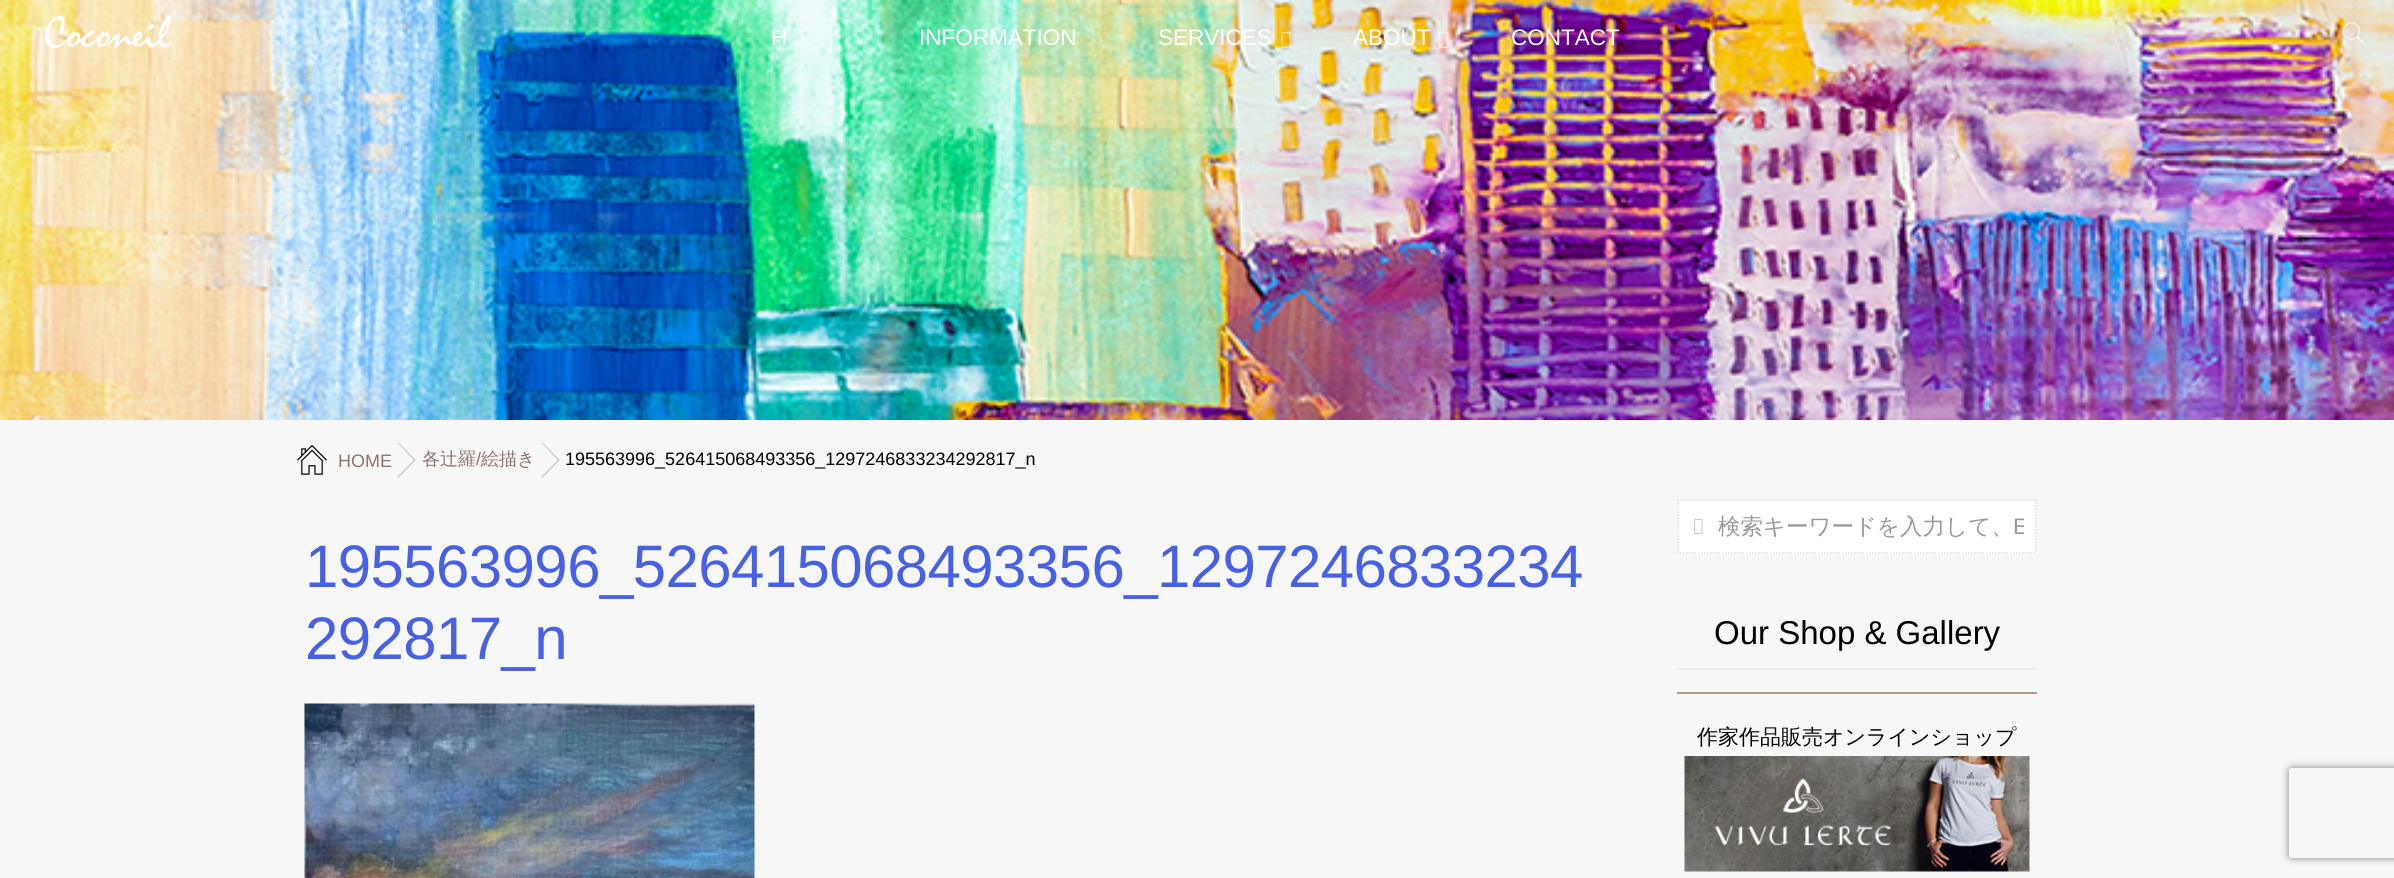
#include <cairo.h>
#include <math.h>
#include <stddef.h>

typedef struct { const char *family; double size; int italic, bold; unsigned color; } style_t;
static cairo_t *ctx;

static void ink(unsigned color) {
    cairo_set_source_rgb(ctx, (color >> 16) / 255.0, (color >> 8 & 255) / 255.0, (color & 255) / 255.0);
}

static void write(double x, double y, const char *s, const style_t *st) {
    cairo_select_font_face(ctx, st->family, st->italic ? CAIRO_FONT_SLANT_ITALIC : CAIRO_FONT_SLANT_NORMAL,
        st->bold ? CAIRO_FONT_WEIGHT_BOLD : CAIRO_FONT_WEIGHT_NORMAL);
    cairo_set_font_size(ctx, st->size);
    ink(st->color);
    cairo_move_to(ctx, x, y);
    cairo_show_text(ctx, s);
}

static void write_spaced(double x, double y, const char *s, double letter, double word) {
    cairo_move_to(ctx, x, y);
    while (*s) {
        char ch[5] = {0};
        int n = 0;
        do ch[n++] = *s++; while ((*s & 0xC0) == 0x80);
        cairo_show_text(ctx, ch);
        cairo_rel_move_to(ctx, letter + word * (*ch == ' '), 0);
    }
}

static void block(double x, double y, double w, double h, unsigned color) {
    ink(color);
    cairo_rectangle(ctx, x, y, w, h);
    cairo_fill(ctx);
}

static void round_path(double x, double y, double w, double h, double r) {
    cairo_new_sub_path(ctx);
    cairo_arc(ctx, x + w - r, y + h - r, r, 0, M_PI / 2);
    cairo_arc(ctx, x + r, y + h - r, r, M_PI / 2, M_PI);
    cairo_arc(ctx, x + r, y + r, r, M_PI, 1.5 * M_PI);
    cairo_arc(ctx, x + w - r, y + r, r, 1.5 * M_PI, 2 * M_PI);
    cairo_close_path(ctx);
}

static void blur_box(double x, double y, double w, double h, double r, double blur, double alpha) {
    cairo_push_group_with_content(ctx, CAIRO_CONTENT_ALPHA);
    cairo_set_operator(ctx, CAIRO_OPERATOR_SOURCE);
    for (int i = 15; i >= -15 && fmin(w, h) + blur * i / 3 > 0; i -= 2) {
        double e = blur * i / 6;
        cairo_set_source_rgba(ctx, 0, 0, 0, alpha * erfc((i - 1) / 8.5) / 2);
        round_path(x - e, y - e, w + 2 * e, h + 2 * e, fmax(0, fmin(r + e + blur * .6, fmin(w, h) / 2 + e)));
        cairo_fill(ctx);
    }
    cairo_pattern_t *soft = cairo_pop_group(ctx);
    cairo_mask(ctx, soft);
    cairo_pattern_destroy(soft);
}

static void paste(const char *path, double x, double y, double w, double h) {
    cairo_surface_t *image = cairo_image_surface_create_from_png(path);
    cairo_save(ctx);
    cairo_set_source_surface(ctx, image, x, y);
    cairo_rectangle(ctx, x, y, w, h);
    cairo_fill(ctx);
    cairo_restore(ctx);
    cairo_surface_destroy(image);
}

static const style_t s1 = {"Liberation Sans", 22.5, 0, 0, 0xffffff};
static const style_t s2 = {"Liberation Sans", 18, 0, 0, 0x8e746f};
static const style_t s3 = {"WenQuanYi Zen Hei Medium", 18, 0, 0, 0x8e746f};
static const style_t s4 = {"Liberation Sans", 18, 0, 0, 0x000000};
static const style_t s5 = {"WenQuanYi Zen Hei Medium", 22.5, 0, 0, 0x999999};
static const style_t s6 = {"Liberation Sans", 22.5, 0, 0, 0x999999};
static const style_t s7 = {"Liberation Sans", 33, 0, 0, 0x000000};
static const style_t s8 = {"WenQuanYi Zen Hei Medium", 21, 0, 0, 0x000000};

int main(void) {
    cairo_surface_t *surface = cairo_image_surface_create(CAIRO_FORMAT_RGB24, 2394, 878);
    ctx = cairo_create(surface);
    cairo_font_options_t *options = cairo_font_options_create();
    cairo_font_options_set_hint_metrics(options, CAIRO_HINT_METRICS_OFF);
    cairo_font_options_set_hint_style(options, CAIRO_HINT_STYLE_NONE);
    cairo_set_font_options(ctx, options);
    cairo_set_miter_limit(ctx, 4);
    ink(0xf7f7f7);
    cairo_paint(ctx);
    paste("pic1.png", 0, 0, 2394, 420);
    paste("pic2.png", 45, 15, 126, 34);
    paste("pic3.png", 2342, 22, 22, 22);
    write(771, 45, "H", &s1);
    write(919, 45, "INFORMATION", &s1);
    write(1158, 45, "SERVICES", &s1);
    paste("pic4.png", 1281, 31, 10, 17);
    write(1353, 45, "ABOUT", &s1);
    paste("pic5.png", 1439, 32, 10, 16);
    write(1511, 45, "CONTACT", &s1);
    paste("pic6.png", 297, 444, 30, 31);
    write(338, 467, "HOME", &s2);
    ink(0xbcbcbc);
    cairo_new_path(ctx);
    cairo_move_to(ctx, 397.5, 442.5);
    cairo_line_to(ctx, 414, 460);
    cairo_line_to(ctx, 397.5, 477);
    cairo_line_to(ctx, 398, 478);
    cairo_line_to(ctx, 415.5, 460);
    cairo_line_to(ctx, 398, 442);
    cairo_close_path(ctx);
    cairo_fill(ctx);
    write(422, 465, "各辻羅", &s3);
    write(476, 465, "/", &s2);
    write(481, 465, "絵描き", &s3);
    ink(0xbcbcbc);
    cairo_new_path(ctx);
    cairo_move_to(ctx, 541.5, 442.5);
    cairo_line_to(ctx, 558, 460);
    cairo_line_to(ctx, 541.5, 477);
    cairo_line_to(ctx, 542, 478);
    cairo_line_to(ctx, 559.5, 460);
    cairo_line_to(ctx, 542, 442);
    cairo_close_path(ctx);
    cairo_fill(ctx);
    write(565, 465, "195563996_526415068493356_1297246833234292817_n", &s4);
    cairo_set_font_size(ctx, 60);
    ink(0x4761e5);
    write_spaced(305, 587, "195563996_526415068493356_1297246833234", -0.6, 0);
    write_spaced(305, 659, "292817_n", -0.6, 0);
    paste("pic7.png", 304, 703, 451, 175);
    block(1677, 500, 360, 54, 0xffffff);
    paste("pic8.png", 1694, 519, 9, 15);
    cairo_new_path(ctx);
    cairo_move_to(ctx, 1677, 500);
    cairo_line_to(ctx, 2037, 500);
    ink(0xdddddd);
    cairo_set_line_width(ctx, 1.5);
    cairo_set_dash(ctx, (double[]){1.5, 1.5}, 2, 0);
    cairo_stroke(ctx);
    cairo_new_path(ctx);
    cairo_move_to(ctx, 2036, 499.5);
    cairo_line_to(ctx, 2036, 553.5);
    cairo_stroke(ctx);
    cairo_new_path(ctx);
    cairo_move_to(ctx, 1677, 553);
    cairo_line_to(ctx, 2037, 553);
    cairo_stroke(ctx);
    cairo_new_path(ctx);
    cairo_move_to(ctx, 1678, 499.5);
    cairo_line_to(ctx, 1678, 553.5);
    cairo_stroke(ctx);
    write(1718, 534, "検索キーワードを入力して、", &s5);
    cairo_save(ctx);
    cairo_rectangle(ctx, 1718, 512, 306, 30);
    cairo_clip(ctx);
    write(2013, 534, "E", &s6);
    cairo_restore(ctx);
    block(1677, 692, 360, 2, 0xb2998a);
    write(1714, 644, "Our Shop & Gallery", &s7);
    block(1677, 668, 360, 2, 0xeaeaea);
    write(1697, 744, "作家作品販売オンラインショップ", &s8);
    paste("pic9.png", 1684, 756, 346, 116);
    cairo_save(ctx);
    cairo_set_fill_rule(ctx, CAIRO_FILL_RULE_EVEN_ODD);
    cairo_new_path(ctx);
    cairo_move_to(ctx, 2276, 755);
    cairo_line_to(ctx, 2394, 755);
    cairo_line_to(ctx, 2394, 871);
    cairo_line_to(ctx, 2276, 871);
    cairo_close_path(ctx);
    cairo_move_to(ctx, 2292, 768);
    cairo_line_to(ctx, 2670, 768);
    cairo_curve_to(ctx, 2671.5, 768, 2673, 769.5, 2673, 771);
    cairo_line_to(ctx, 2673, 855);
    cairo_curve_to(ctx, 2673, 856.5, 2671.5, 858, 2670, 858);
    cairo_line_to(ctx, 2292, 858);
    cairo_curve_to(ctx, 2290.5, 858, 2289, 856.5, 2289, 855);
    cairo_line_to(ctx, 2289, 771);
    cairo_curve_to(ctx, 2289, 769.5, 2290.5, 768, 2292, 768);
    cairo_close_path(ctx);
    cairo_clip(ctx);
    ink(0x808080);
    blur_box(2289, 768, 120, 90, 3, 4, 1);
    cairo_restore(ctx);
    cairo_surface_write_to_png(surface, "screenshot.png");
    cairo_font_options_destroy(options);
    cairo_destroy(ctx);
    cairo_surface_destroy(surface);
    return 0;
}
